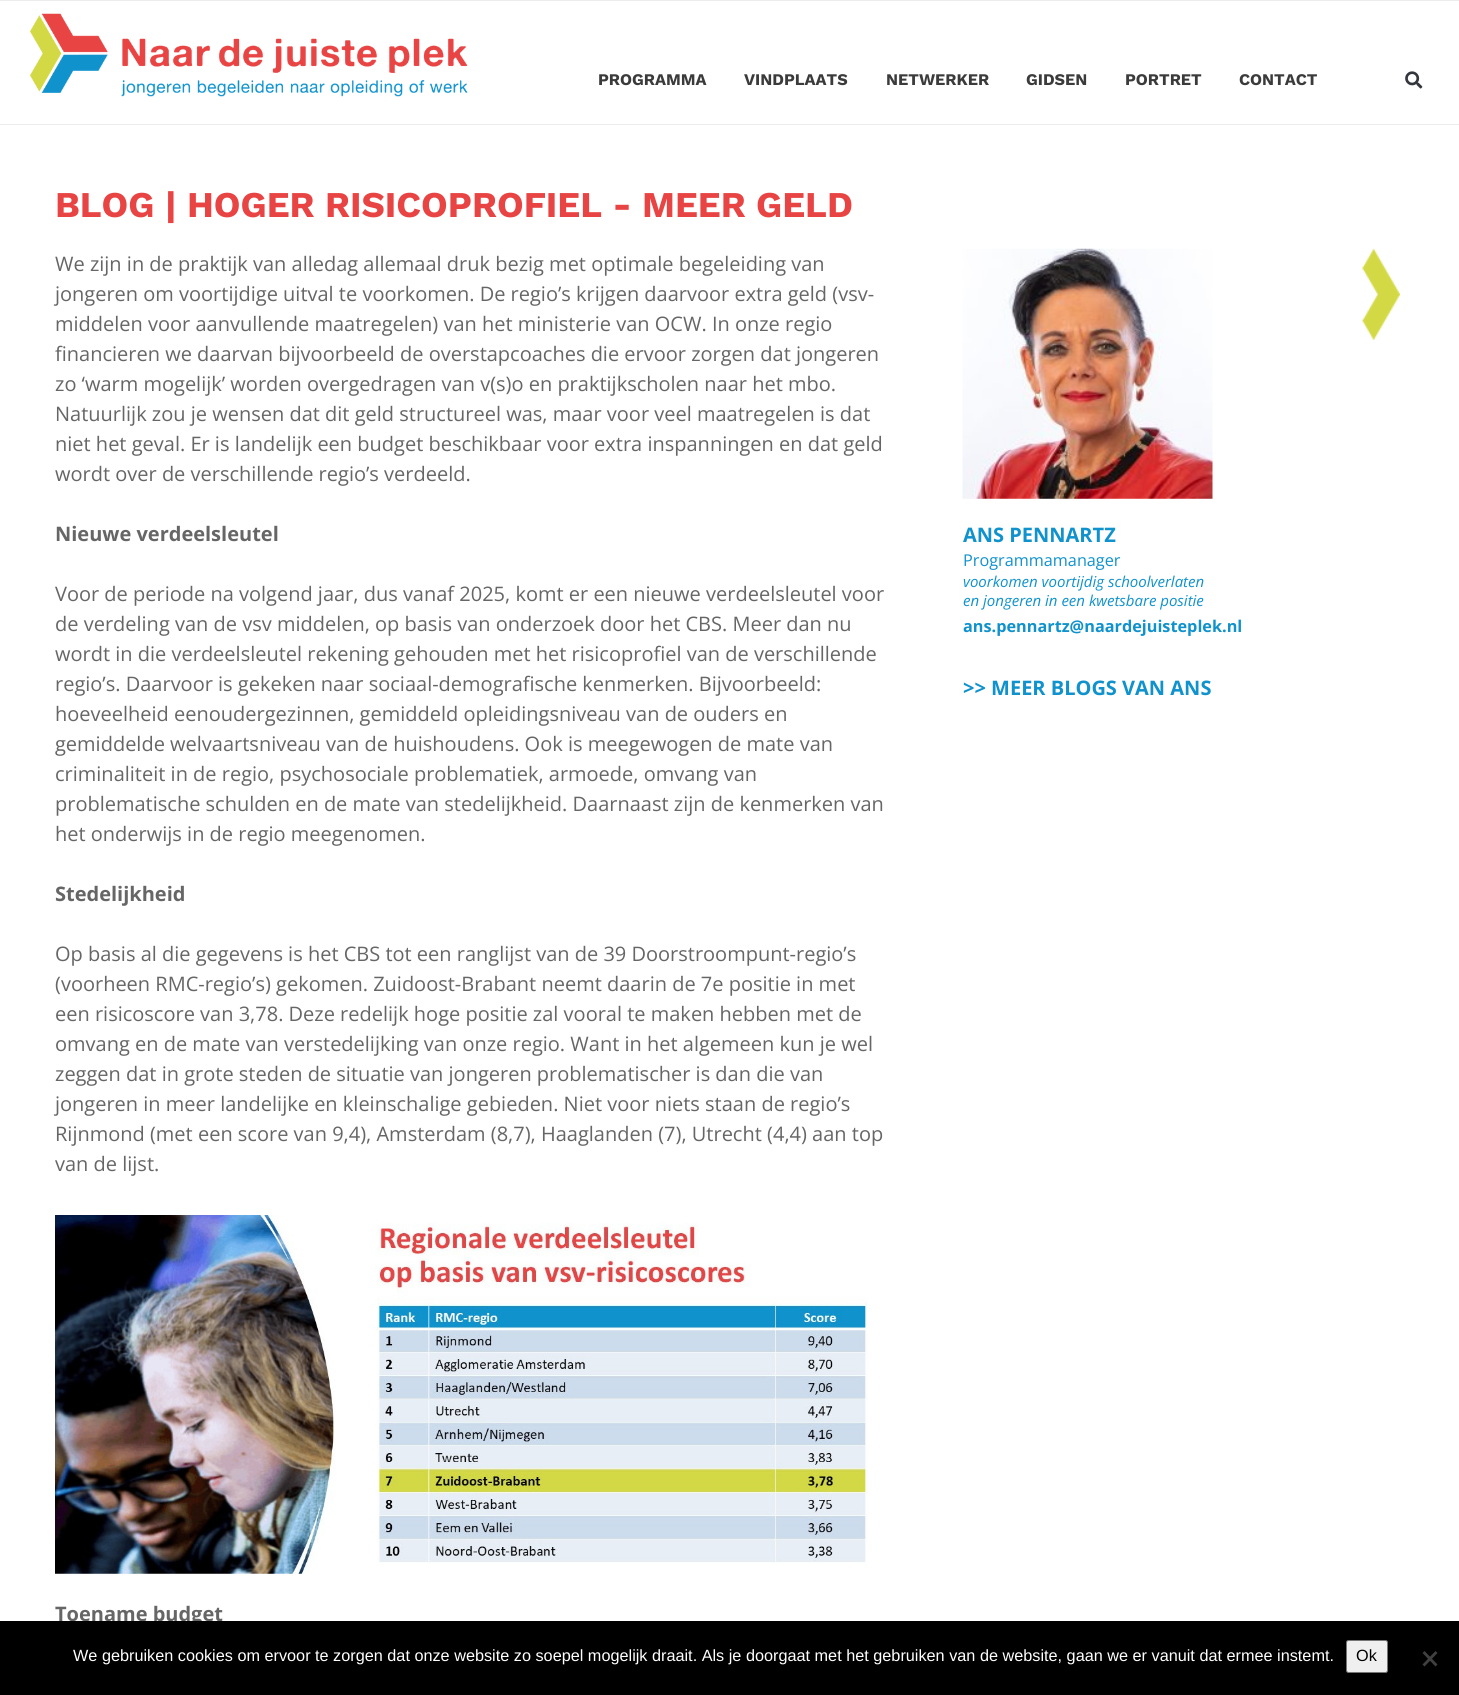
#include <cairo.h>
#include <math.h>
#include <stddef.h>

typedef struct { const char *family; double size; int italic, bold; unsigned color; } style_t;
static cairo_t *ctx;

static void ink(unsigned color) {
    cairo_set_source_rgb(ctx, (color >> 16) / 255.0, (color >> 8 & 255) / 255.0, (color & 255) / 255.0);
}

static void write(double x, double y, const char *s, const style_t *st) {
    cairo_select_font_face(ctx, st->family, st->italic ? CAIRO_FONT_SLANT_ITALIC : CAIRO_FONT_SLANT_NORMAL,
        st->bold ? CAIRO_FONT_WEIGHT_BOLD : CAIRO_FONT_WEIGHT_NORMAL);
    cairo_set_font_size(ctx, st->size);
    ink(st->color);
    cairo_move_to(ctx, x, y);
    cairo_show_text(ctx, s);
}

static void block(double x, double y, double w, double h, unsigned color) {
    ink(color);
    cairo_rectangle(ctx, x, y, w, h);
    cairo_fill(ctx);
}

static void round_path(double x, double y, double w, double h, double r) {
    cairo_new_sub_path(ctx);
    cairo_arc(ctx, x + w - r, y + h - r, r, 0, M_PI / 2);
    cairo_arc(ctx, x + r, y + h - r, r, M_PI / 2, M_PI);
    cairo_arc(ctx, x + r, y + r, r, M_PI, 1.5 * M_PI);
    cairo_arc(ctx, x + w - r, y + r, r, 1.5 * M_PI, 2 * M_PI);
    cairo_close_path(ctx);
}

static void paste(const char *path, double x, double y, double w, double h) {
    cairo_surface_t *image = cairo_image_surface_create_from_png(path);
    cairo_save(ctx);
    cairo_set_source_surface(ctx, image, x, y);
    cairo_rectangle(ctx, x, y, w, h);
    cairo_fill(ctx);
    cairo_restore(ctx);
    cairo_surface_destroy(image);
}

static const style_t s1 = {"Work Sans", 16.25, 0, 1, 0x3b3b3b};
static const style_t s2 = {"Work Sans", 36.25, 0, 1, 0xe84444};
static const style_t s3 = {"Open Sans", 20, 0, 0, 0x666666};
static const style_t s4 = {"Open Sans", 20, 0, 1, 0x666666};
static const style_t s5 = {"Open Sans", 20, 0, 1, 0x1092cd};
static const style_t s6 = {"Open Sans", 16.25, 0, 0, 0x1092cd};
static const style_t s7 = {"Open Sans", 15, 1, 0, 0x1092cd};
static const style_t s8 = {"Open Sans", 16.25, 0, 1, 0x1092cd};
static const style_t s9 = {"Liberation Sans", 16.25, 0, 0, 0xffffff};
static const style_t s10 = {"Liberation Sans", 16.25, 0, 0, 0x000000};

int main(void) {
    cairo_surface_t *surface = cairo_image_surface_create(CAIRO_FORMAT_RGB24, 1459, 1695);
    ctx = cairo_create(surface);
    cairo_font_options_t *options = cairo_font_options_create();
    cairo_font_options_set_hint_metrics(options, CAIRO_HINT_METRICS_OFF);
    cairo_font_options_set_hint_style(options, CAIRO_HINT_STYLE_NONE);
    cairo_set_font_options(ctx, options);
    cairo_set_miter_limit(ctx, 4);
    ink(0xffffff);
    cairo_paint(ctx);
    block(0, 0, 1459, 1, 0xececec);
    block(0, 124, 1459, 1, 0xececec);
    paste("pic1.png", 30, 13, 438, 84);
    write(598, 85, "PROGRAMMA", &s1);
    write(744, 85, "VINDPLAATS", &s1);
    write(886, 85, "NETWERKER", &s1);
    write(1026, 85, "GIDSEN", &s1);
    write(1125, 85, "PORTRET", &s1);
    write(1239, 85, "CONTACT", &s1);
    paste("pic2.png", 1405, 71, 18, 18);
    write(55, 217, "BLOG | HOGER RISICOPROFIEL - MEER GELD", &s2);
    write(55, 271, "We zijn in de praktijk van alledag allemaal druk bezig met optimale begeleiding van", &s3);
    write(55, 301, "jongeren om voortijdige uitval te voorkomen. De regio’s krijgen daarvoor extra geld (vsv-", &s3);
    write(55, 331, "middelen voor aanvullende maatregelen) van het ministerie van OCW. In onze regio", &s3);
    write(55, 361, "financieren we daarvan bijvoorbeeld de overstapcoaches die ervoor zorgen dat jongeren", &s3);
    write(55, 391, "zo ‘warm mogelijk’ worden overgedragen van v(s)o en praktijkscholen naar het mbo.", &s3);
    write(55, 421, "Natuurlijk zou je wensen dat dit geld structureel was, maar voor veel maatregelen is dat", &s3);
    write(55, 451, "niet het geval. Er is landelijk een budget beschikbaar voor extra inspanningen en dat geld", &s3);
    write(55, 481, "wordt over de verschillende regio’s verdeeld.", &s3);
    write(55, 541, "Nieuwe verdeelsleutel", &s4);
    write(55, 601, "Voor de periode na volgend jaar, dus vanaf 2025, komt er een nieuwe verdeelsleutel voor", &s3);
    write(55, 631, "de verdeling van de vsv middelen, op basis van onderzoek door het CBS. Meer dan nu", &s3);
    write(55, 661, "wordt in die verdeelsleutel rekening gehouden met het risicoprofiel van de verschillende", &s3);
    write(55, 691, "regio’s. Daarvoor is gekeken naar sociaal-demografische kenmerken. Bijvoorbeeld:", &s3);
    write(55, 721, "hoeveelheid eenoudergezinnen, gemiddeld opleidingsniveau van de ouders en", &s3);
    write(55, 751, "gemiddelde welvaartsniveau van de huishoudens. Ook is meegewogen de mate van", &s3);
    write(55, 781, "criminaliteit in de regio, psychosociale problematiek, armoede, omvang van", &s3);
    write(55, 811, "problematische schulden en de mate van stedelijkheid. Daarnaast zijn de kenmerken van", &s3);
    write(55, 841, "het onderwijs in de regio meegenomen.", &s3);
    write(55, 901, "Stedelijkheid", &s4);
    write(55, 961, "Op basis al die gegevens is het CBS tot een ranglijst van de 39 Doorstroompunt-regio’s", &s3);
    write(55, 991, "(voorheen RMC-regio’s) gekomen. Zuidoost-Brabant neemt daarin de 7e positie in met", &s3);
    write(55, 1021, "een risicoscore van 3,78. Deze redelijk hoge positie zal vooral te maken hebben met de", &s3);
    write(55, 1051, "omvang en de mate van verstedelijking van onze regio. Want in het algemeen kun je wel", &s3);
    write(55, 1081, "zeggen dat in grote steden de situatie van jongeren problematischer is dan die van", &s3);
    write(55, 1111, "jongeren in meer landelijke en kleinschalige gebieden. Niet voor niets staan de regio’s", &s3);
    write(55, 1141, "Rijnmond (met een score van 9,4), Amsterdam (8,7), Haaglanden (7), Utrecht (4,4) aan top", &s3);
    write(55, 1171, "van de lijst.", &s3);
    paste("pic3.png", 55, 1215, 813, 359);
    write(55, 1621, "Toename budget", &s4);
    paste("pic4.png", 962, 248, 251, 251);
    write(963, 542, "ANS PENNARTZ", &s5);
    write(963, 566, "Programmamanager", &s6);
    write(963, 587, "voorkomen voortijdig schoolverlaten", &s7);
    write(963, 606, "en jongeren in een kwetsbare positie", &s7);
    write(963, 632, "ans.pennartz@naardejuisteplek.nl", &s8);
    write(963, 695, ">> MEER BLOGS VAN ANS", &s5);
    paste("pic5.png", 1362, 248, 38, 92);
    block(0, 1621, 1459, 74, 0x000000);
    write(73, 1661, "We gebruiken cookies om ervoor te zorgen dat onze website zo soepel mogelijk draait. Als je doorgaat met het gebruiken van de website, gaan we er vanuit dat ermee instemt.", &s9);
    ink(0xefefef);
    round_path(1346.5, 1640.5, 41, 32, 2);
    cairo_fill_preserve(ctx);
    ink(0x767676);
    cairo_set_line_width(ctx, 1);
    cairo_stroke(ctx);
    write(1356, 1661, "Ok", &s10);
    ink(0x404040);
    cairo_new_path(ctx);
    cairo_move_to(ctx, 1435.5, 1651);
    cairo_line_to(ctx, 1437.5, 1653);
    cairo_line_to(ctx, 1424.5, 1666.5);
    cairo_line_to(ctx, 1422.5, 1664.5);
    cairo_close_path(ctx);
    cairo_fill(ctx);
    cairo_new_path(ctx);
    cairo_move_to(ctx, 1422.5, 1653);
    cairo_line_to(ctx, 1424.5, 1651);
    cairo_line_to(ctx, 1437.5, 1664.5);
    cairo_line_to(ctx, 1435.5, 1666.5);
    cairo_close_path(ctx);
    cairo_fill(ctx);
    cairo_surface_write_to_png(surface, "screenshot.png");
    cairo_font_options_destroy(options);
    cairo_destroy(ctx);
    cairo_surface_destroy(surface);
    return 0;
}
